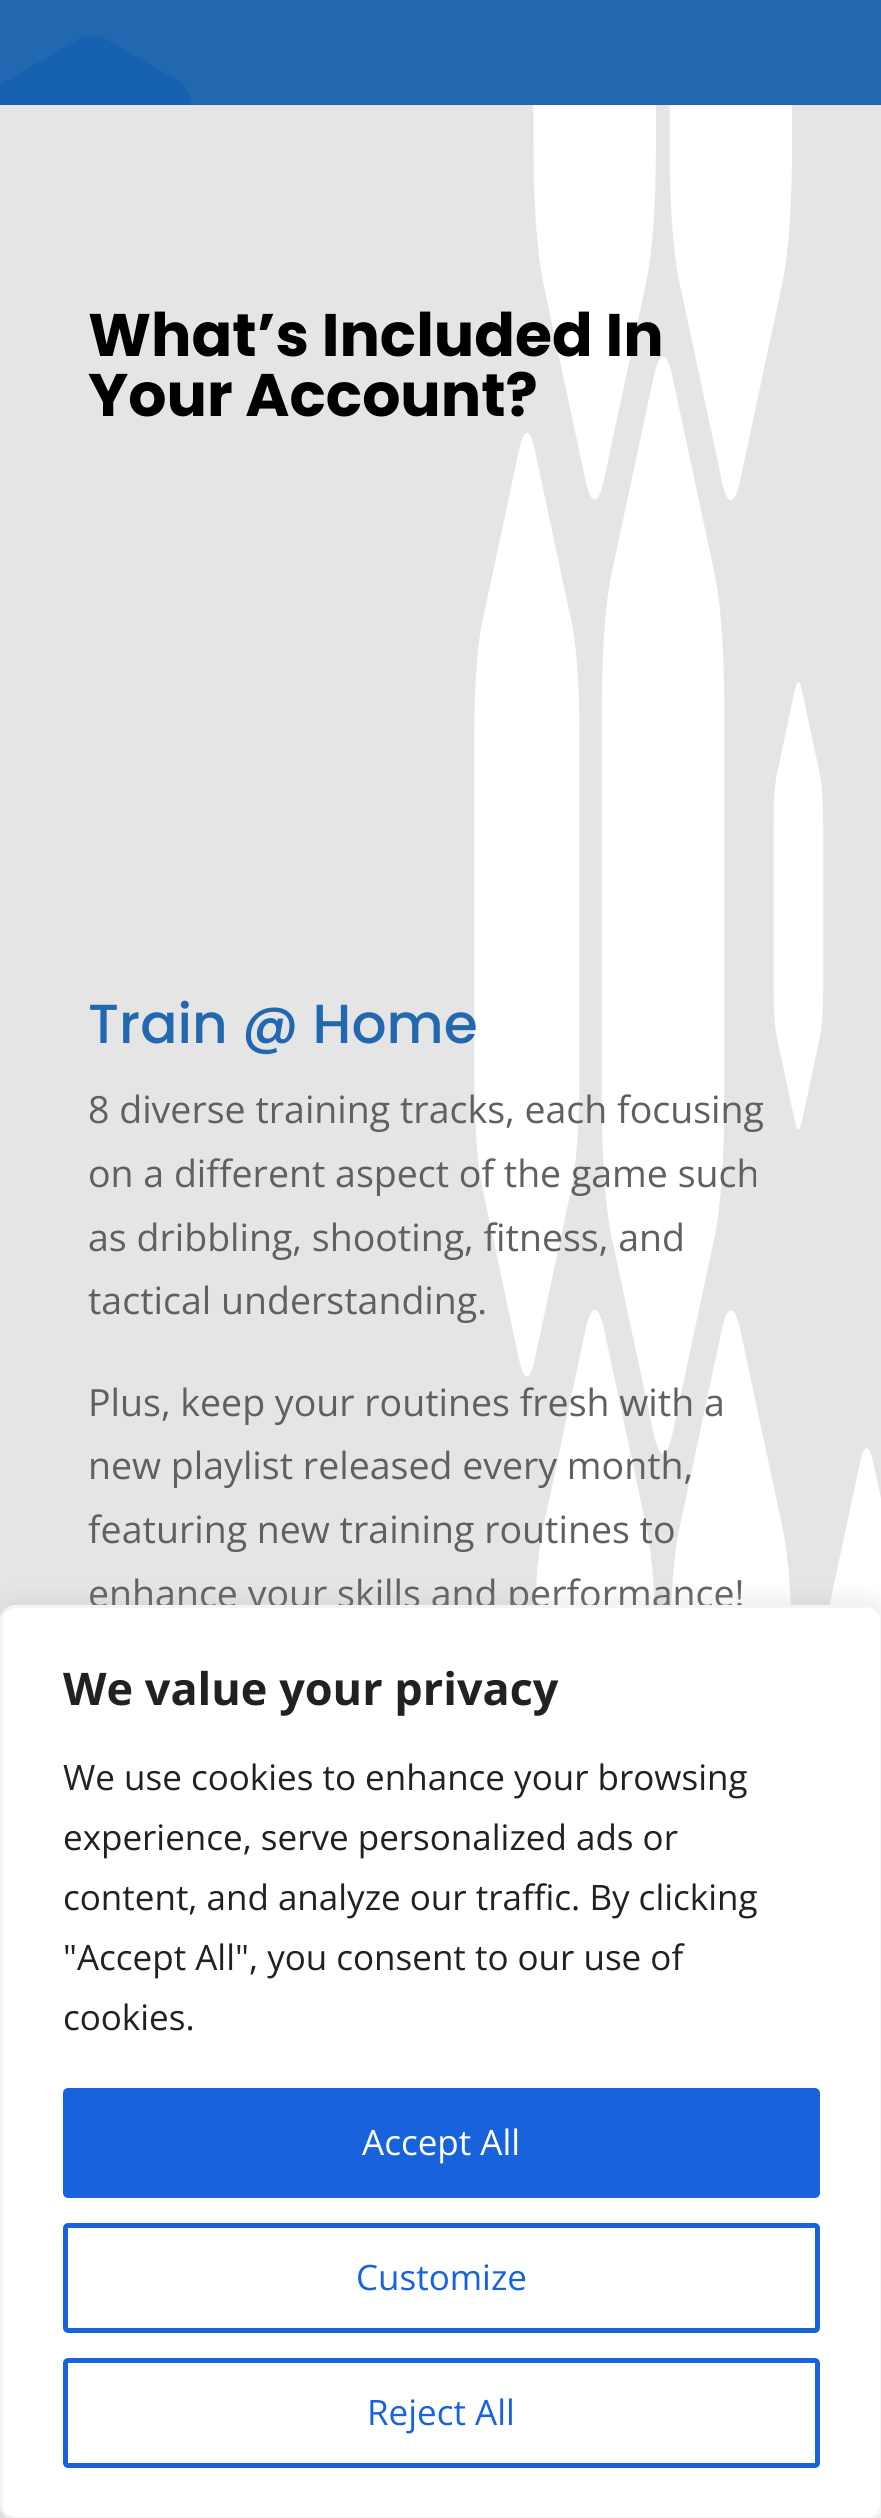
#include <cairo.h>
#include <math.h>
#include <stddef.h>

typedef struct { const char *family; double size; int italic, bold; unsigned color; } style_t;
static cairo_t *ctx;

static void ink(unsigned color) {
    cairo_set_source_rgb(ctx, (color >> 16) / 255.0, (color >> 8 & 255) / 255.0, (color & 255) / 255.0);
}

static void write(double x, double y, const char *s, const style_t *st) {
    cairo_select_font_face(ctx, st->family, st->italic ? CAIRO_FONT_SLANT_ITALIC : CAIRO_FONT_SLANT_NORMAL,
        st->bold ? CAIRO_FONT_WEIGHT_BOLD : CAIRO_FONT_WEIGHT_NORMAL);
    cairo_set_font_size(ctx, st->size);
    ink(st->color);
    cairo_move_to(ctx, x, y);
    cairo_show_text(ctx, s);
}

static void block(double x, double y, double w, double h, unsigned color) {
    ink(color);
    cairo_rectangle(ctx, x, y, w, h);
    cairo_fill(ctx);
}

static void round_path(double x, double y, double w, double h, double r) {
    cairo_new_sub_path(ctx);
    cairo_arc(ctx, x + w - r, y + h - r, r, 0, M_PI / 2);
    cairo_arc(ctx, x + r, y + h - r, r, M_PI / 2, M_PI);
    cairo_arc(ctx, x + r, y + r, r, M_PI, 1.5 * M_PI);
    cairo_arc(ctx, x + w - r, y + r, r, 1.5 * M_PI, 2 * M_PI);
    cairo_close_path(ctx);
}

static void blur_box(double x, double y, double w, double h, double r, double blur, double alpha) {
    cairo_push_group_with_content(ctx, CAIRO_CONTENT_ALPHA);
    cairo_set_operator(ctx, CAIRO_OPERATOR_SOURCE);
    for (int i = 15; i >= -15 && fmin(w, h) + blur * i / 3 > 0; i -= 2) {
        double e = blur * i / 6;
        cairo_set_source_rgba(ctx, 0, 0, 0, alpha * erfc((i - 1) / 8.5) / 2);
        round_path(x - e, y - e, w + 2 * e, h + 2 * e, fmax(0, fmin(r + e + blur * .6, fmin(w, h) / 2 + e)));
        cairo_fill(ctx);
    }
    cairo_pattern_t *soft = cairo_pop_group(ctx);
    cairo_mask(ctx, soft);
    cairo_pattern_destroy(soft);
}

static void paste(const char *path, double x, double y, double w, double h) {
    cairo_surface_t *image = cairo_image_surface_create_from_png(path);
    cairo_save(ctx);
    cairo_set_source_surface(ctx, image, x, y);
    cairo_rectangle(ctx, x, y, w, h);
    cairo_fill(ctx);
    cairo_restore(ctx);
    cairo_surface_destroy(image);
}

static const style_t s1 = {"Poppins", 60, 0, 1, 0x000000};
static const style_t s2 = {"Poppins Medium", 55, 0, 0, 0x2268b1};
static const style_t s3 = {"Open Sans", 37.5, 0, 0, 0x606060};
static const style_t s4 = {"Open Sans", 45, 0, 1, 0x212121};
static const style_t s5 = {"Open Sans", 35, 0, 0, 0x212121};
static const style_t s6 = {"Open Sans", 35, 0, 0, 0xffffff};
static const style_t s7 = {"Open Sans", 35, 0, 0, 0x1863dc};

int main(void) {
    cairo_surface_t *surface = cairo_image_surface_create(CAIRO_FORMAT_RGB24, 881, 2518);
    ctx = cairo_create(surface);
    cairo_font_options_t *options = cairo_font_options_create();
    cairo_font_options_set_hint_metrics(options, CAIRO_HINT_METRICS_OFF);
    cairo_font_options_set_hint_style(options, CAIRO_HINT_STYLE_NONE);
    cairo_set_font_options(ctx, options);
    cairo_set_miter_limit(ctx, 4);
    ink(0xffffff);
    cairo_paint(ctx);
    block(0, 0, 881, 105, 0x2268b1);
    paste("pic1.png", 0, 35, 192, 70);
    paste("pic2.png", 0, 105, 881, 2413);
    write(88, 356, "What’s Included In", &s1);
    write(88, 416, "Your Account?", &s1);
    write(88, 1043, "Train @ Home", &s2);
    write(88, 1123, "8 diverse training tracks, each focusing", &s3);
    write(88, 1187, "on a different aspect of the game such", &s3);
    write(88, 1251, "as dribbling, shooting, fitness, and", &s3);
    write(88, 1314, "tactical understanding.", &s3);
    write(88, 1416, "Plus, keep your routines fresh with a", &s3);
    write(88, 1479, "new playlist released every month,", &s3);
    write(88, 1543, "featuring new training routines to", &s3);
    write(88, 1607, "enhance your skills and performance!", &s3);
    paste("pic3.png", 875, 2512, 6, 6);
    ink(0xacabab);
    blur_box(0, 1603, 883, 915, 15, 12.5, 0.3);
    ink(0xffffff);
    round_path(1.5, 1606.5, 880, 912, 13.5);
    cairo_fill_preserve(ctx);
    ink(0xf4f4f4);
    cairo_set_line_width(ctx, 3);
    cairo_stroke(ctx);
    write(63, 1705, "We value your privacy", &s4);
    write(63, 1790, "We use cookies to enhance your browsing", &s5);
    write(63, 1850, "experience, serve personalized ads or", &s5);
    write(63, 1910, "content, and analyze our traffic. By clicking", &s5);
    write(63, 1970, "\"Accept All\", you consent to our use of", &s5);
    write(63, 2030, "cookies.", &s5);
    ink(0x1863dc);
    round_path(65.5, 2090.5, 752, 105, 2.5);
    cairo_fill_preserve(ctx);
    cairo_set_line_width(ctx, 5);
    cairo_stroke(ctx);
    write(362, 2155, "Accept All", &s6);
    round_path(65.5, 2225.5, 752, 105, 2.5);
    ink(0x1863dc);
    cairo_stroke(ctx);
    write(356, 2290, "Customize", &s7);
    round_path(65.5, 2360.5, 752, 105, 2.5);
    cairo_stroke(ctx);
    write(367, 2425, "Reject All", &s7);
    cairo_surface_write_to_png(surface, "screenshot.png");
    cairo_font_options_destroy(options);
    cairo_destroy(ctx);
    cairo_surface_destroy(surface);
    return 0;
}
